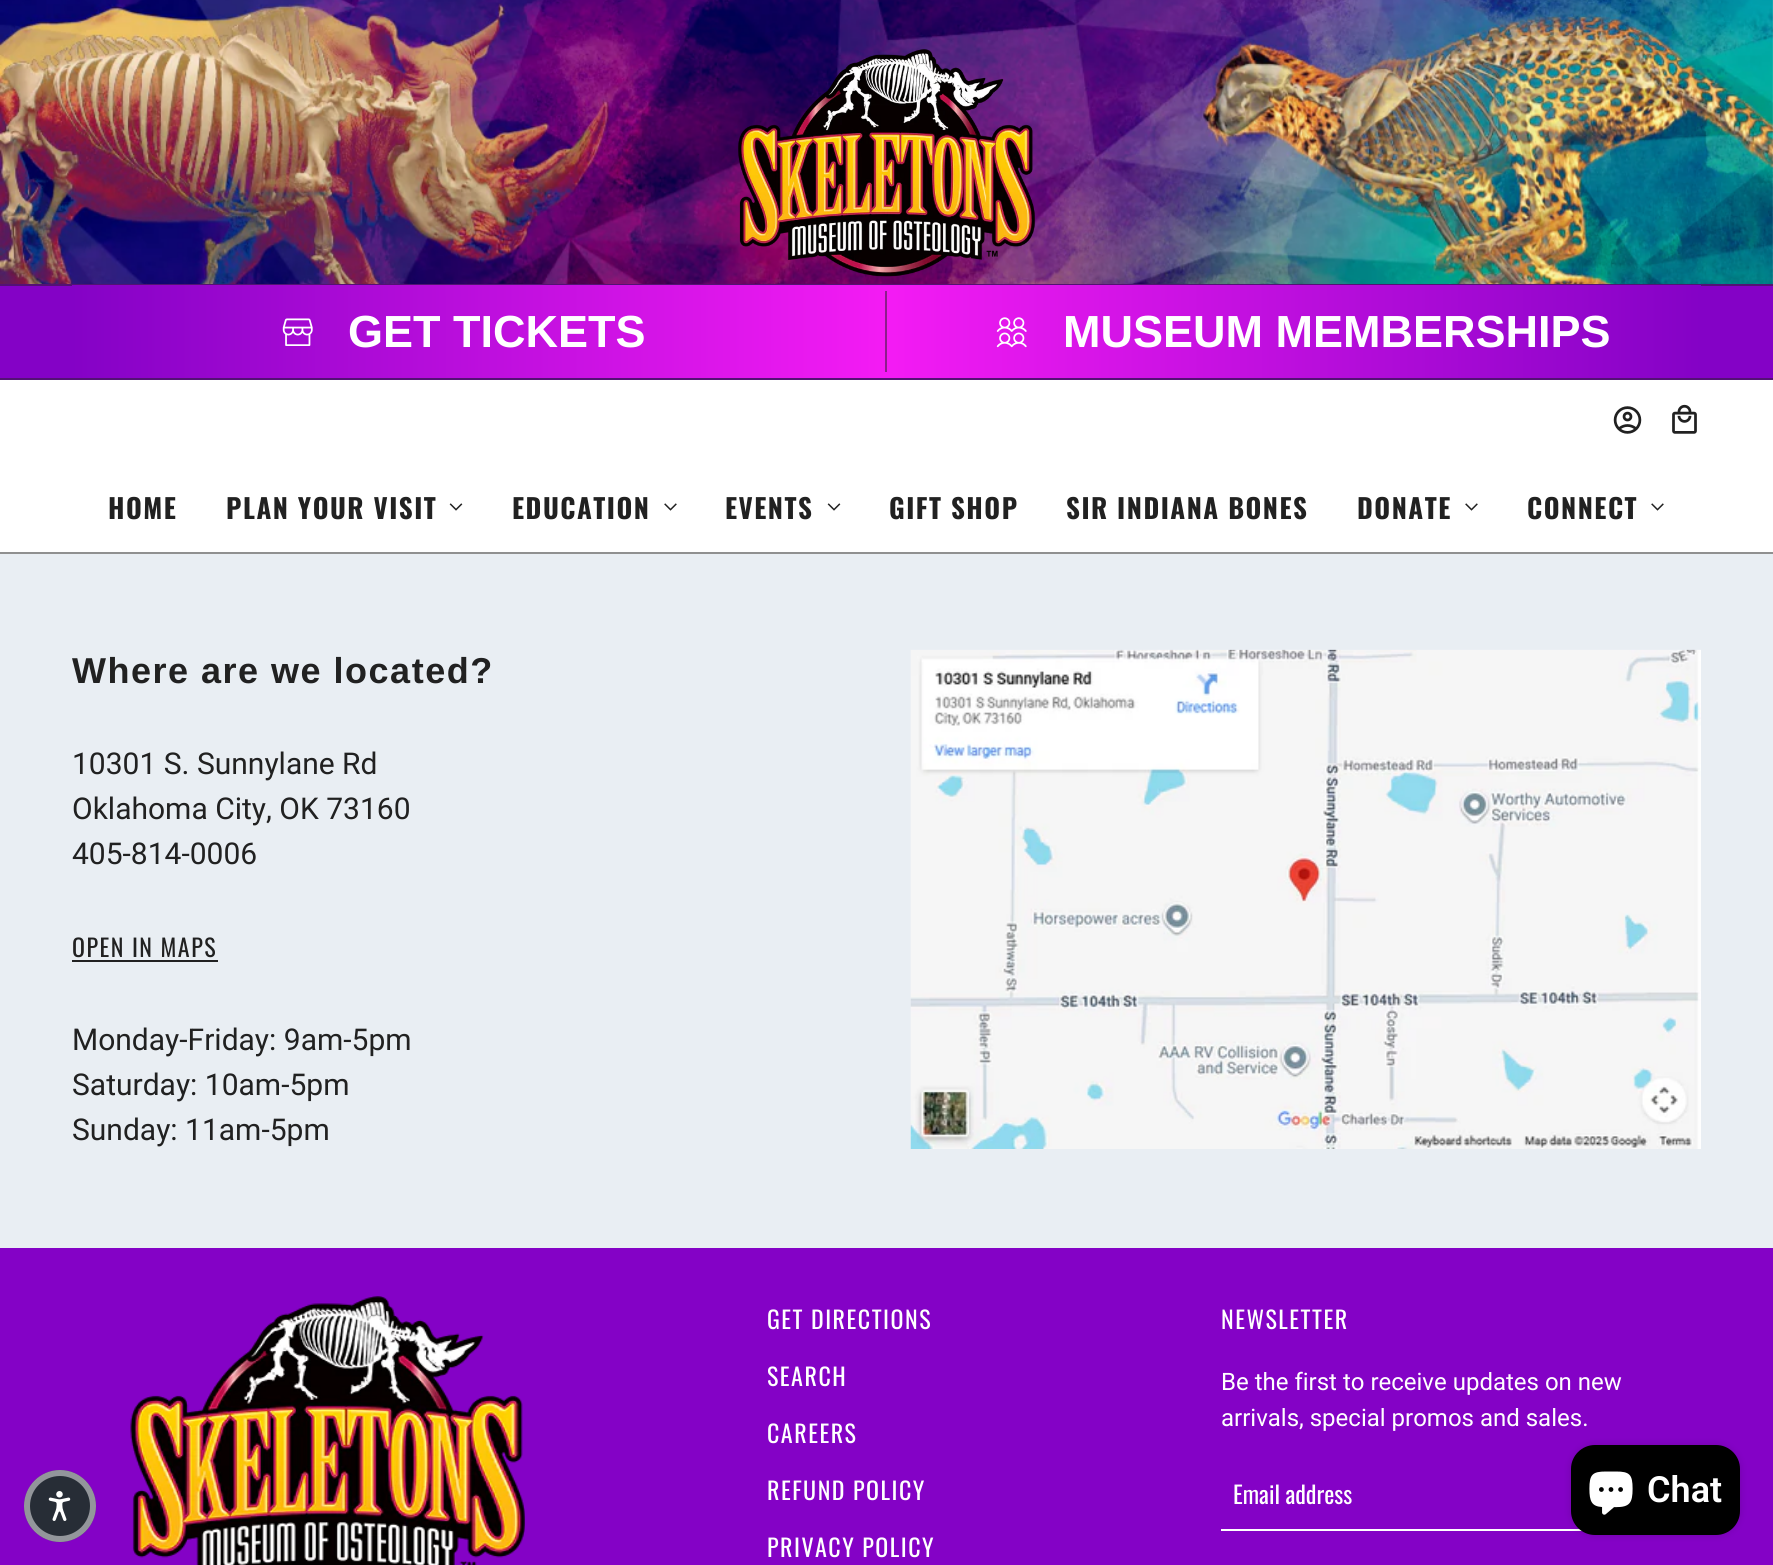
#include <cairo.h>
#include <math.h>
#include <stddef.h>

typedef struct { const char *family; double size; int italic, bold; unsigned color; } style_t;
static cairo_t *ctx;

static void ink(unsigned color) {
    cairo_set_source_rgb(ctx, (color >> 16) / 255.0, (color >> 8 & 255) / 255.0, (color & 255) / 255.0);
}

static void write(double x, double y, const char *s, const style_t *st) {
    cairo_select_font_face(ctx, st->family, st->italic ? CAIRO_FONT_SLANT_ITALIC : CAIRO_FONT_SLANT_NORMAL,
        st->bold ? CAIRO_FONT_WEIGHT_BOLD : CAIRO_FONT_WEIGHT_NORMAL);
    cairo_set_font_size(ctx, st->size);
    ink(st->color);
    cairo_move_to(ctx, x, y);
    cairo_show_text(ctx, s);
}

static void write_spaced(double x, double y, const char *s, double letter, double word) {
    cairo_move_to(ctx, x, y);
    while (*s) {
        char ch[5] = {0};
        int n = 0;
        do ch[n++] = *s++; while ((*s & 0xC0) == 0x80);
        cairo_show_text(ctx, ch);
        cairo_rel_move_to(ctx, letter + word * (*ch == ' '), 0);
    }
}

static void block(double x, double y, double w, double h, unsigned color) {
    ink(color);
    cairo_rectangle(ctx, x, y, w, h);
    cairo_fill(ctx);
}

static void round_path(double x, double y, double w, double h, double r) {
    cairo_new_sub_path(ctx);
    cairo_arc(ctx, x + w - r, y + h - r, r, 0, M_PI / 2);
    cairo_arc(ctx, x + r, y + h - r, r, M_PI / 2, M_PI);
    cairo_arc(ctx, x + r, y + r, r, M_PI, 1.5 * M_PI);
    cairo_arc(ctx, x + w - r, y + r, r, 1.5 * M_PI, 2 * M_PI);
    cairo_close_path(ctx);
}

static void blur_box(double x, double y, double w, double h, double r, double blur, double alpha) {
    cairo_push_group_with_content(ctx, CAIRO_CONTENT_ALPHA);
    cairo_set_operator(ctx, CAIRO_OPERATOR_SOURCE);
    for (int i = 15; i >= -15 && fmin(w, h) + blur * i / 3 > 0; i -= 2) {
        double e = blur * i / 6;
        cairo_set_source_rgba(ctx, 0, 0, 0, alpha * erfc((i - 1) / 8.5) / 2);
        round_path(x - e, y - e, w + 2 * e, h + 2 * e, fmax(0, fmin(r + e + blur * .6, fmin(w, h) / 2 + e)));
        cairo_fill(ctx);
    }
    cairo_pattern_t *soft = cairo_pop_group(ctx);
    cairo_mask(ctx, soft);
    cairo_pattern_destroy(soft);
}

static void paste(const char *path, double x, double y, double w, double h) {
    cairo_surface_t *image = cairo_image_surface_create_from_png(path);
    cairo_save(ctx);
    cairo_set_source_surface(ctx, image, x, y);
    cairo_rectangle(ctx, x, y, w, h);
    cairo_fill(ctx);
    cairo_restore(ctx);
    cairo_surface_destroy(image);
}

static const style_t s1 = {"Liberation Sans", 45, 0, 1, 0xffffff};
static const style_t s2 = {"Roboto", 30, 0, 0, 0x212121};
static const style_t s3 = {"Roboto", 24, 0, 0, 0xffffff};
static const style_t s4 = {"Oswald", 24, 0, 0, 0xffffff};
static const style_t s5 = {"Roboto SemiBold", 36, 0, 0, 0xffffff};

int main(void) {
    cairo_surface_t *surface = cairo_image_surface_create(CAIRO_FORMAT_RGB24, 1773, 1565);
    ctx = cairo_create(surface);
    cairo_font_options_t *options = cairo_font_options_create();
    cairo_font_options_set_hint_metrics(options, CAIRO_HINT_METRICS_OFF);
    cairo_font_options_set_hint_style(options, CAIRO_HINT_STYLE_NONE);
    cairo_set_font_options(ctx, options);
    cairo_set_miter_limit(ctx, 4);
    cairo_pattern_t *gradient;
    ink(0xffffff);
    cairo_paint(ctx);
    block(0, 1248, 1773, 317, 0x8402c6);
    ink(0x272d36);
    cairo_arc(ctx, 60, 1506, 36, 0, 2 * M_PI);
    cairo_fill(ctx);
    cairo_arc(ctx, 60, 1506, 33, 0, 2 * M_PI);
    cairo_set_source_rgba(ctx, 1, 1, 1, 0.5);
    cairo_set_line_width(ctx, 6);
    cairo_stroke(ctx);
    paste("pic1.png", 48, 1491, 23, 30);
    paste("pic2.png", 0, 0, 1773, 284);
    paste("pic3.png", 738, 49, 297, 228);
    block(0, 286, 1773, 92, 0x8402c6);
    block(0, 284, 1773, 2, 0x531274);
    block(0, 378, 1773, 2, 0x531274);
    gradient = cairo_pattern_create_linear(72, 332, 1701, 331);
    cairo_pattern_add_color_stop_rgba(gradient, 0, 0.518, 0.008, 0.776, 1);
    cairo_pattern_add_color_stop_rgba(gradient, 0.5, 0.957, 0.106, 0.957, 1);
    cairo_pattern_add_color_stop_rgba(gradient, 1, 0.518, 0.008, 0.776, 1);
    cairo_set_source(ctx, gradient);
    cairo_pattern_destroy(gradient);
    cairo_rectangle(ctx, 72, 285, 1629, 93);
    cairo_fill(ctx);
    block(885, 291, 2, 81, 0x8b1e8b);
    paste("pic4.png", 282, 318, 31, 28);
    write(348, 347, "GET TICKETS", &s1);
    paste("pic5.png", 996, 317, 31, 31);
    write(1063, 347, "MUSEUM MEMBERSHIPS", &s1);
    paste("pic6.png", 1613, 406, 29, 28);
    paste("pic7.png", 1672, 404, 25, 30);
    cairo_select_font_face(ctx, "Oswald", CAIRO_FONT_SLANT_NORMAL, CAIRO_FONT_WEIGHT_BOLD);
    cairo_set_font_size(ctx, 27);
    ink(0x212121);
    write_spaced(108, 519, "HOME", 1.5, 0);
    write_spaced(226, 519, "PLAN YOUR VISIT", 1.5, 0);
    paste("pic8.png", 449, 503, 14, 8);
    write_spaced(512, 519, "EDUCATION", 1.5, 0);
    paste("pic9.png", 664, 503, 13, 8);
    write_spaced(725, 519, "EVENTS", 1.5, 0);
    paste("pic8.png", 827, 503, 14, 8);
    write_spaced(889, 519, "GIFT SHOP", 1.5, 0);
    write_spaced(1066, 519, "SIR INDIANA BONES", 1.5, 0);
    write_spaced(1357, 519, "DONATE", 1.5, 0);
    paste("pic9.png", 1465, 503, 13, 8);
    write_spaced(1527, 519, "CONNECT", 1.5, 0);
    paste("pic9.png", 1651, 503, 13, 8);
    block(0, 552, 1773, 2, 0x909090);
    block(0, 554, 1773, 694, 0xe9eef3);
    cairo_select_font_face(ctx, "Liberation Sans", CAIRO_FONT_SLANT_NORMAL, CAIRO_FONT_WEIGHT_BOLD);
    cairo_set_font_size(ctx, 36);
    ink(0x212121);
    write_spaced(72, 683, "Where are we located?", 1.5, 0);
    write(72, 774, "10301 S. Sunnylane Rd", &s2);
    write(72, 819, "Oklahoma City, OK 73160", &s2);
    write(72, 864, "405-814-0006", &s2);
    cairo_select_font_face(ctx, "Oswald", CAIRO_FONT_SLANT_NORMAL, CAIRO_FONT_WEIGHT_NORMAL);
    cairo_set_font_size(ctx, 24);
    write_spaced(72, 957, "OPEN IN MAPS", 1.5, 0);
    block(72, 960, 146, 2, 0x212121);
    write(72, 1050, "Monday-Friday: 9am-5pm", &s2);
    write(72, 1095, "Saturday: 10am-5pm", &s2);
    write(72, 1140, "Sunday: 11am-5pm", &s2);
    paste("pic10.png", 910, 649, 791, 500);
    paste("pic11.png", 130, 1296, 395, 269);
    cairo_select_font_face(ctx, "Oswald", CAIRO_FONT_SLANT_NORMAL, CAIRO_FONT_WEIGHT_NORMAL);
    cairo_set_font_size(ctx, 24);
    ink(0xffffff);
    write_spaced(767, 1329, "GET DIRECTIONS", 1.5, 0);
    write_spaced(767, 1386, "SEARCH", 1.5, 0);
    write_spaced(767, 1443, "CAREERS", 1.5, 0);
    write_spaced(767, 1500, "REFUND POLICY", 1.5, 0);
    write_spaced(767, 1557, "PRIVACY POLICY", 1.5, 0);
    write_spaced(1221, 1329, "NEWSLETTER", 1.5, 0);
    write(1221, 1390, "Be the first to receive updates on new", &s3);
    write(1221, 1426, "arrivals, special promos and sales.", &s3);
    block(1221, 1529, 361, 2, 0xffffff);
    write(1233, 1504, "Email address", &s4);
    ink(0x000000);
    blur_box(1571, 1445, 169, 90, 24, 4, 0.15);
    ink(0x000000);
    round_path(1571, 1445, 169, 90, 24);
    cairo_fill(ctx);
    paste("pic12.png", 1589, 1471, 44, 44);
    write(1647, 1502, "Chat", &s5);
    cairo_surface_write_to_png(surface, "screenshot.png");
    cairo_font_options_destroy(options);
    cairo_destroy(ctx);
    cairo_surface_destroy(surface);
    return 0;
}
